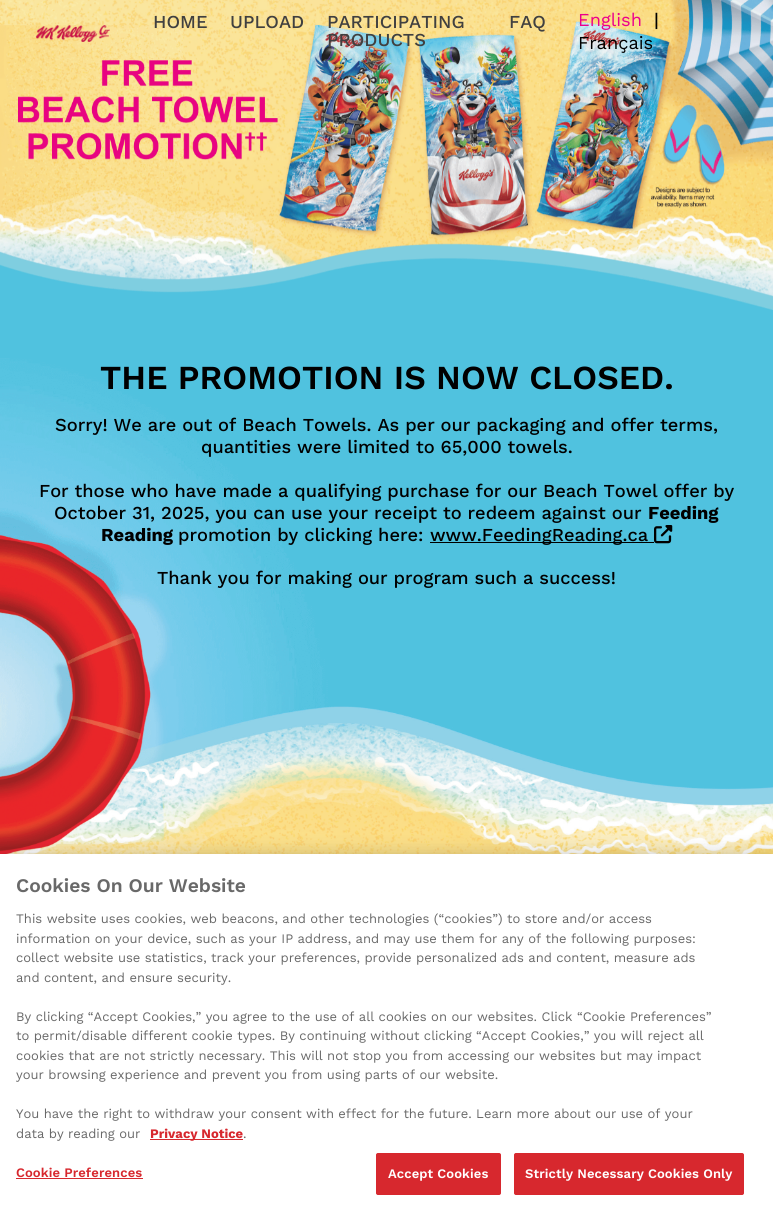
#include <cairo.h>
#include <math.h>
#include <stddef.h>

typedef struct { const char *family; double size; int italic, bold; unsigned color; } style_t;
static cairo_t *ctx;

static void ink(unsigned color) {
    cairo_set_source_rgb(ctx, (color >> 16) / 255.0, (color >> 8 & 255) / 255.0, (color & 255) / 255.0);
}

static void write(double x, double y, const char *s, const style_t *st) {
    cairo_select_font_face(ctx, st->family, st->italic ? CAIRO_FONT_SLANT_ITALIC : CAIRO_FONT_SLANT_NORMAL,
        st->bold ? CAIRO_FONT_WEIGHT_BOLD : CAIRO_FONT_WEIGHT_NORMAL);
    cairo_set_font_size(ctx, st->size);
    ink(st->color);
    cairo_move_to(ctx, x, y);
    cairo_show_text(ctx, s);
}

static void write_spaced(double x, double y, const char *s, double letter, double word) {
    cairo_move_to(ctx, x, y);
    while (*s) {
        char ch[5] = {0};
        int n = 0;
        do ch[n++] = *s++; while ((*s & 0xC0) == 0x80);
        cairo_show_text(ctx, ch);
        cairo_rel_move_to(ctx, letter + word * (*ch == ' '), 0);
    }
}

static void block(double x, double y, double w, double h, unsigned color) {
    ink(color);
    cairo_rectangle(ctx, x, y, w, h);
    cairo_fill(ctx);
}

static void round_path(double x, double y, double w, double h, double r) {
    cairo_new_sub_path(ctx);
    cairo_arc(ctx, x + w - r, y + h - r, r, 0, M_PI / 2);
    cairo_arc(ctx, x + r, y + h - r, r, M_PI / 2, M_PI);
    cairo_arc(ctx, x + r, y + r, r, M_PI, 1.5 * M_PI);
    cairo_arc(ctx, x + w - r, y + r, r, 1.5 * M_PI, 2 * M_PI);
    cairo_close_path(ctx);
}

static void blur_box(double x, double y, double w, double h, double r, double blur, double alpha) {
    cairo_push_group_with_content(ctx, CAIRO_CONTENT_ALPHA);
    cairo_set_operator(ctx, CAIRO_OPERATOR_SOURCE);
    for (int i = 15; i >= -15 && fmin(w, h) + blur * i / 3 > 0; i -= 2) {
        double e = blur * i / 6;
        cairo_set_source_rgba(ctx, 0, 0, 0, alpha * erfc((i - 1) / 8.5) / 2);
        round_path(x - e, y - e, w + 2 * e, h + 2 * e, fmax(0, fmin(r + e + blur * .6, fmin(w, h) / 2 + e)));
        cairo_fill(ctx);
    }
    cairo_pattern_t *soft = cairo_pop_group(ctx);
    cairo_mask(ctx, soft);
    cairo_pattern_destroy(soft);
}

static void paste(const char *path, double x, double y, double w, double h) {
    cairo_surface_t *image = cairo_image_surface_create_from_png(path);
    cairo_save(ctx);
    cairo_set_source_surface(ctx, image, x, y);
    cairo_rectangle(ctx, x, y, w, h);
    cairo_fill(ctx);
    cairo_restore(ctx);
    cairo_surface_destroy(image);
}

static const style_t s1 = {"Work Sans Medium", 18.25, 0, 0, 0x404040};
static const style_t s2 = {"Work Sans", 18.25, 0, 0, 0xec008c};
static const style_t s3 = {"Work Sans Medium", 18.25, 0, 0, 0x000000};
static const style_t s4 = {"Work Sans", 18.25, 0, 0, 0x000000};
static const style_t s5 = {"Work Sans SemiBold", 33.6, 0, 0, 0x000000};
static const style_t s6 = {"Work Sans", 18.25, 0, 1, 0x000000};
static const style_t s7 = {"Work Sans SemiBold", 19.25, 0, 0, 0x696969};
static const style_t s8 = {"Work Sans", 13, 0, 0, 0x696969};
static const style_t s9 = {"Work Sans", 13, 0, 1, 0xd7282e};

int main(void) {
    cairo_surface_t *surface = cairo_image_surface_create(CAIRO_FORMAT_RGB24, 773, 1215);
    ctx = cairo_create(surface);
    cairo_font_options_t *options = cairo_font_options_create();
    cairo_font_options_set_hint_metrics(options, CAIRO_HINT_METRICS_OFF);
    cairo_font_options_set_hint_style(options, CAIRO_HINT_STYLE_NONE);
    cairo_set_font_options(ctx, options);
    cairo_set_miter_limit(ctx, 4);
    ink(0x50c2df);
    cairo_paint(ctx);
    paste("pic1.png", 0, 0, 773, 310);
    paste("pic2.png", 36, 25, 74, 17);
    write(153, 28, "HOME", &s1);
    write(230, 28, "UPLOAD", &s1);
    write(327, 28, "PARTICIPATING", &s1);
    write(327, 46, "PRODUCTS", &s1);
    write(509, 28, "FAQ", &s1);
    write(578, 26, "English", &s2);
    write(654, 26, "|", &s3);
    write(578, 49, "Français", &s4);
    paste("pic3.png", 0, 358, 773, 496);
    write(100, 389, "THE PROMOTION IS NOW CLOSED.", &s5);
    write(55, 431, "Sorry! We are out of Beach Towels. As per our packaging and offer terms,", &s3);
    write(201, 453, "quantities were limited to 65,000 towels.", &s3);
    write(39, 497, "For those who have made a qualifying purchase for our Beach Towel offer by", &s3);
    write(54, 519, "October 31, 2025, you can use your receipt to redeem against our", &s3);
    write(648, 519, "Feeding", &s6);
    write(101, 541, "Reading", &s6);
    write(178, 541, "promotion by clicking here:", &s3);
    block(430, 542, 224, 1, 0x000000);
    write(430, 541, "www.FeedingReading.ca", &s3);
    paste("pic4.png", 654, 525, 19, 19);
    write(157, 584, "Thank you for making our program such a success!", &s3);
    ink(0x000000);
    blur_box(0, 854, 773, 361, 0, 9, 0.2);
    block(0, 854, 773, 361, 0xffffff);
    write(16, 892, "Cookies On Our Website", &s7);
    write(16, 923, "This website uses cookies, web beacons, and other technologies (“cookies”) to store and/or access", &s8);
    write(16, 943, "information on your device, such as your IP address, and may use them for any of the following purposes:", &s8);
    write(16, 962, "collect website use statistics, track your preferences, provide personalized ads and content, measure ads", &s8);
    write(16, 982, "and content, and ensure security.", &s8);
    write(16, 1021, "By clicking “Accept Cookies,” you agree to the use of all cookies on our websites. Click “Cookie Preferences”", &s8);
    write(16, 1040, "to permit/disable different cookie types. By continuing without clicking “Accept Cookies,” you will reject all", &s8);
    write(16, 1060, "cookies that are not strictly necessary. This will not stop you from accessing our websites but may impact", &s8);
    write(16, 1079, "your browsing experience and prevent you from using parts of our website.", &s8);
    write(16, 1118, "You have the right to withdraw your consent with effect for the future. Learn more about our use of your", &s8);
    write(16, 1138, "data by reading our", &s8);
    block(150, 1139, 93, 1, 0xd7282e);
    write(150, 1138, "Privacy Notice", &s9);
    write(243, 1138, ".", &s8);
    cairo_select_font_face(ctx, "Work Sans SemiBold", CAIRO_FONT_SLANT_NORMAL, CAIRO_FONT_WEIGHT_NORMAL);
    ink(0xd7282e);
    write_spaced(16, 1177, "Cookie Preferences", 0.1, 0);
    block(16, 1178, 127, 1, 0xd7282e);
    round_path(376.5, 1153.5, 124, 41, 1.5);
    cairo_fill_preserve(ctx);
    cairo_set_line_width(ctx, 1);
    cairo_stroke(ctx);
    ink(0xffffff);
    write_spaced(388, 1178, "Accept Cookies", 0.1, 0);
    ink(0xd7282e);
    round_path(514.5, 1153.5, 229, 41, 1.5);
    cairo_fill_preserve(ctx);
    cairo_stroke(ctx);
    ink(0xffffff);
    write_spaced(525, 1178, "Strictly Necessary Cookies Only", 0.1, 0);
    cairo_surface_write_to_png(surface, "screenshot.png");
    cairo_font_options_destroy(options);
    cairo_destroy(ctx);
    cairo_surface_destroy(surface);
    return 0;
}
